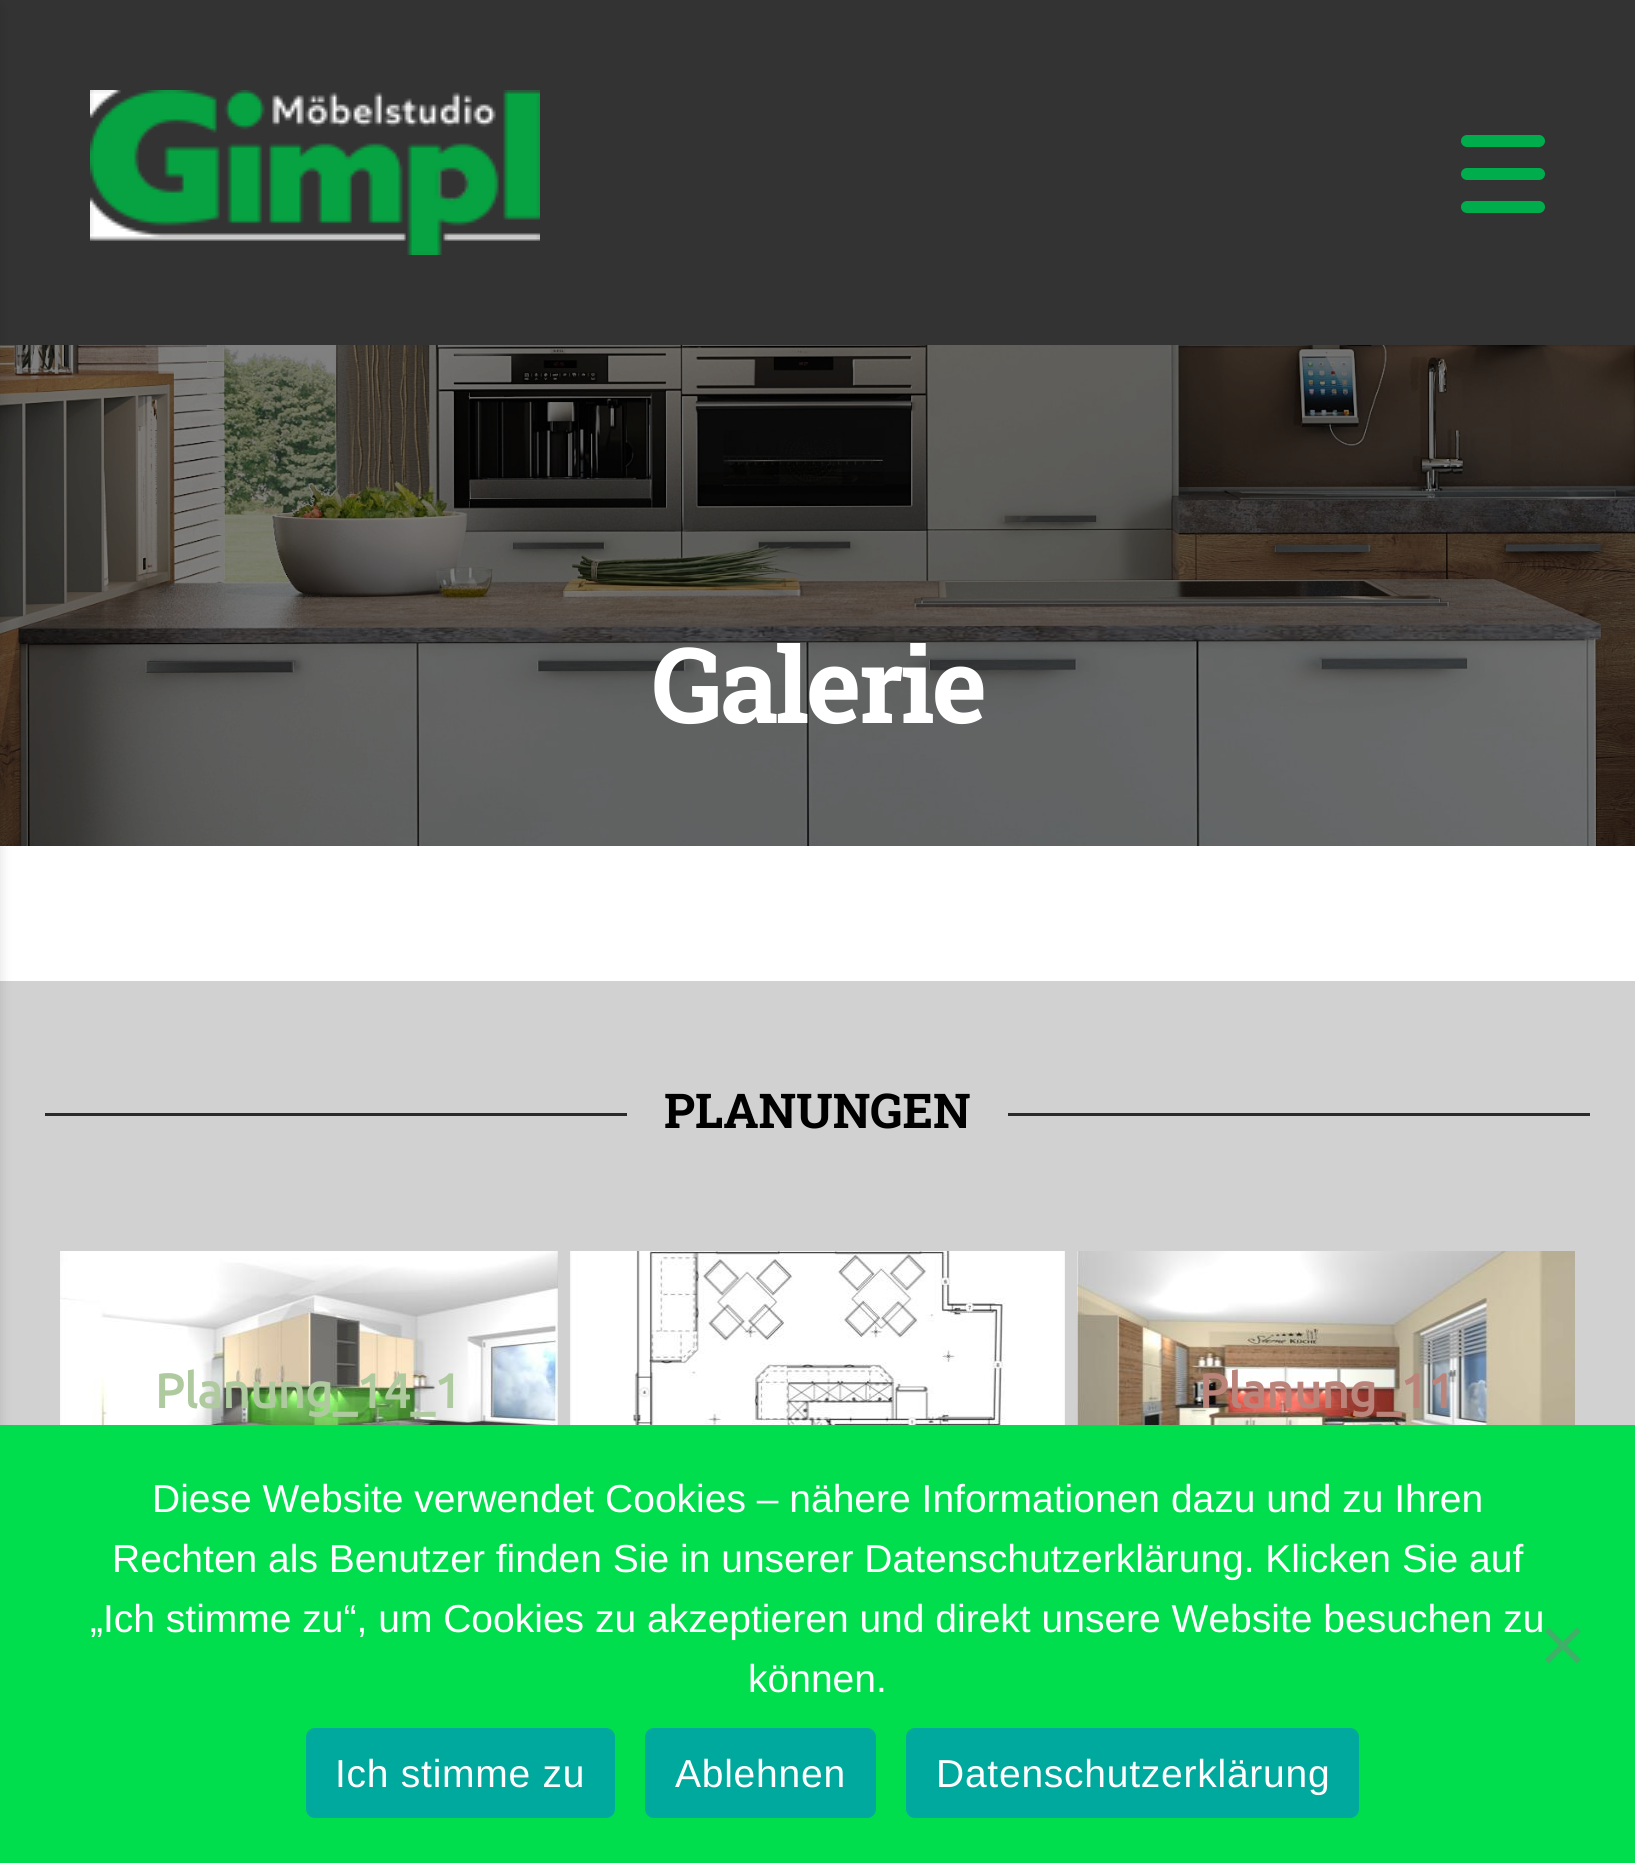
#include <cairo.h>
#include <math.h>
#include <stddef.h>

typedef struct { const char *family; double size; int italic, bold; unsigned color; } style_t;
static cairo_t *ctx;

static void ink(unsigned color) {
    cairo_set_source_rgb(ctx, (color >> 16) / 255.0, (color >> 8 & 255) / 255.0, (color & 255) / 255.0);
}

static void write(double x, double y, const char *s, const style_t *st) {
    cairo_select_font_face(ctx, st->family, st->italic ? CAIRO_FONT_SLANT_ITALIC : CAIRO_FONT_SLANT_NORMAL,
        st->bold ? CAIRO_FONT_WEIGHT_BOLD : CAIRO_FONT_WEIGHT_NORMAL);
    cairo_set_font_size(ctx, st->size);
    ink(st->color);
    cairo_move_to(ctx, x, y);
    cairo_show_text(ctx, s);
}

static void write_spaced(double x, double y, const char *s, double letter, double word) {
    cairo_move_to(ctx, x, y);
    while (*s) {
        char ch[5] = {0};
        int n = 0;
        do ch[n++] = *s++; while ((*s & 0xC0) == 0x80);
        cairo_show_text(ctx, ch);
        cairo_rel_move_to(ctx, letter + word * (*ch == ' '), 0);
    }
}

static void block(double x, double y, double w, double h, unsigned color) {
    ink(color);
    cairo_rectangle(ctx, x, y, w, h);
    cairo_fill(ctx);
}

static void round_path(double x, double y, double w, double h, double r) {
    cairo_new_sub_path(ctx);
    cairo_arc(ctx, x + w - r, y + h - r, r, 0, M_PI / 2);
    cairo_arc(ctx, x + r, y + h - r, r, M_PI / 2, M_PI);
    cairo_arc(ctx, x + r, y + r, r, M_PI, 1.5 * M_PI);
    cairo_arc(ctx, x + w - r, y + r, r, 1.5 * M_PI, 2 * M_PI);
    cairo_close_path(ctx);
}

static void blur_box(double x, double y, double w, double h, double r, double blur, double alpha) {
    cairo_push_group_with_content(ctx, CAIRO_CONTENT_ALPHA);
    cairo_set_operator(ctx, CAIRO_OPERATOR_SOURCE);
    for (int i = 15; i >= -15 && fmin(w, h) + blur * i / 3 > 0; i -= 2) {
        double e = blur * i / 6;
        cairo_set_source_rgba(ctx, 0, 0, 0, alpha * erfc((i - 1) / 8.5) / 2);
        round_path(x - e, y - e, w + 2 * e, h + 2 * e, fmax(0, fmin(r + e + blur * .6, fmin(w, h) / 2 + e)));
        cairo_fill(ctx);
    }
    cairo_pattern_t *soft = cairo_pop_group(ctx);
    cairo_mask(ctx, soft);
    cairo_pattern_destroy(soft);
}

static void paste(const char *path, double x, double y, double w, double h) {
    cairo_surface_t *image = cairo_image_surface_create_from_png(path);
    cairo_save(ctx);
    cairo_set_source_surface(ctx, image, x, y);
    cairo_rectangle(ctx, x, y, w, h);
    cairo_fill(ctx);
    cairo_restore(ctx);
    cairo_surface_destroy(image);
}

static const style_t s1 = {"Roboto Slab", 48, 0, 1, 0x000000};
static const style_t s2 = {"Ubuntu", 48, 0, 1, 0xb0caa0};
static const style_t s3 = {"Ubuntu", 48, 0, 1, 0xba847a};
static const style_t s4 = {"Liberation Sans", 39, 0, 0, 0xffffff};

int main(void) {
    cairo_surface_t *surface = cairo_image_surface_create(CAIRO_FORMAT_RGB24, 1635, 1863);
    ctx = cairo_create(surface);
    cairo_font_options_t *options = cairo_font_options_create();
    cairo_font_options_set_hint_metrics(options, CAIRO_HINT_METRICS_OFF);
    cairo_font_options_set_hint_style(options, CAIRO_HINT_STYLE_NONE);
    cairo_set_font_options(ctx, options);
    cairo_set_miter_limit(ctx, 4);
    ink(0xffffff);
    cairo_paint(ctx);
    block(0, 0, 1635, 345, 0x333333);
    paste("pic1.png", 90, 90, 450, 165);
    ink(0x00ad4d);
    round_path(1461, 135, 84, 12, 6);
    cairo_fill(ctx);
    round_path(1461, 168, 84, 12, 6);
    cairo_fill(ctx);
    round_path(1461, 201, 84, 12, 6);
    cairo_fill(ctx);
    paste("pic2.png", 0, 345, 1635, 501);
    block(0, 981, 1635, 444, 0xd1d1d1);
    ink(0x000000);
    blur_box(-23, 9, 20, 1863, 0, 7.5, 0.2);
    cairo_select_font_face(ctx, "Roboto Slab", CAIRO_FONT_SLANT_NORMAL, CAIRO_FONT_WEIGHT_BOLD);
    cairo_set_font_size(ctx, 105);
    ink(0xffffff);
    write_spaced(652, 723, "Galerie", -3, 0);
    block(45, 1113, 582, 3, 0x2a2a2a);
    write(664, 1128, "PLANUNGEN", &s1);
    block(1008, 1113, 582, 3, 0x2a2a2a);
    paste("pic3.png", 60, 1251, 498, 174);
    write(155, 1408, "Planung_14_1", &s2);
    paste("pic4.png", 570, 1251, 495, 174);
    paste("pic5.png", 1077, 1251, 498, 174);
    write(1199, 1408, "Planung_11", &s3);
    block(0, 1425, 1635, 438, 0x00dd4d);
    write(152, 1512, "Diese Website verwendet Cookies – nähere Informationen dazu und zu Ihren", &s4);
    write(112, 1572, "Rechten als Benutzer finden Sie in unserer Datenschutzerklärung. Klicken Sie auf", &s4);
    write(90, 1632, "„Ich stimme zu“, um Cookies zu akzeptieren und direkt unsere Website besuchen zu", &s4);
    write(748, 1692, "können.", &s4);
    ink(0x40af67);
    cairo_new_path(ctx);
    cairo_move_to(ctx, 1577, 1627.5);
    cairo_line_to(ctx, 1581, 1631.5);
    cairo_line_to(ctx, 1549, 1663.5);
    cairo_line_to(ctx, 1545, 1659.5);
    cairo_close_path(ctx);
    cairo_fill(ctx);
    cairo_new_path(ctx);
    cairo_move_to(ctx, 1545, 1631.5);
    cairo_line_to(ctx, 1549, 1627.5);
    cairo_line_to(ctx, 1581, 1659.5);
    cairo_line_to(ctx, 1577, 1663.5);
    cairo_close_path(ctx);
    cairo_fill(ctx);
    ink(0x00a99d);
    round_path(306, 1728, 309, 90, 9);
    cairo_fill(ctx);
    ink(0xffffff);
    write_spaced(335, 1787, "Ich stimme zu", 0.75, 0);
    ink(0x00a99d);
    round_path(645, 1728, 231, 90, 9);
    cairo_fill(ctx);
    ink(0xffffff);
    write_spaced(675, 1787, "Ablehnen", 0.75, 0);
    ink(0x00a99d);
    round_path(906, 1728, 453, 90, 9);
    cairo_fill(ctx);
    ink(0xffffff);
    write_spaced(936, 1787, "Datenschutzerklärung", 0.75, 0);
    cairo_surface_write_to_png(surface, "screenshot.png");
    cairo_font_options_destroy(options);
    cairo_destroy(ctx);
    cairo_surface_destroy(surface);
    return 0;
}
